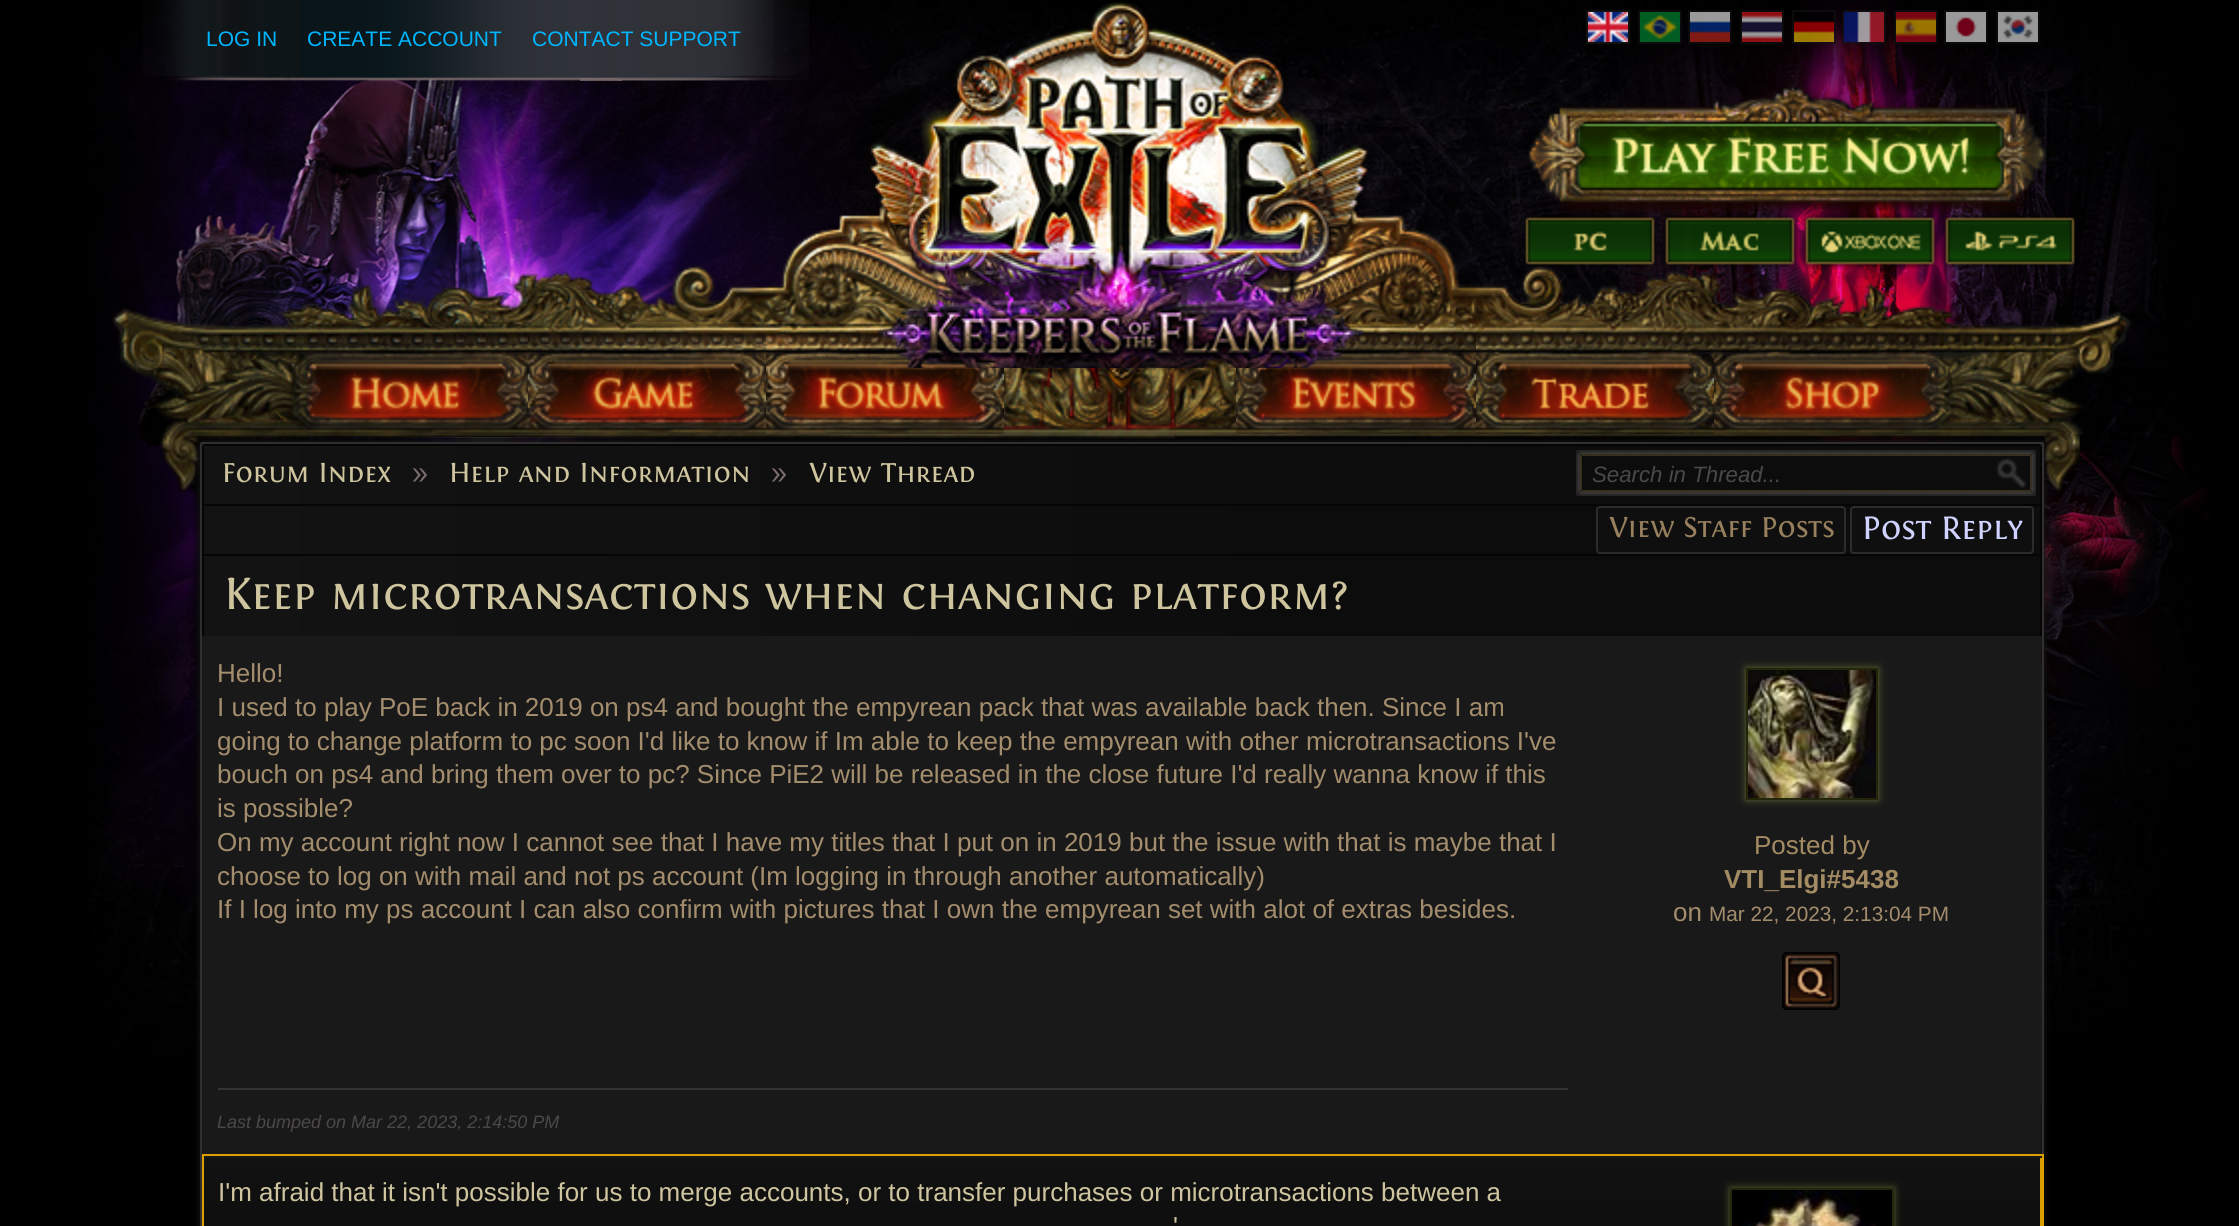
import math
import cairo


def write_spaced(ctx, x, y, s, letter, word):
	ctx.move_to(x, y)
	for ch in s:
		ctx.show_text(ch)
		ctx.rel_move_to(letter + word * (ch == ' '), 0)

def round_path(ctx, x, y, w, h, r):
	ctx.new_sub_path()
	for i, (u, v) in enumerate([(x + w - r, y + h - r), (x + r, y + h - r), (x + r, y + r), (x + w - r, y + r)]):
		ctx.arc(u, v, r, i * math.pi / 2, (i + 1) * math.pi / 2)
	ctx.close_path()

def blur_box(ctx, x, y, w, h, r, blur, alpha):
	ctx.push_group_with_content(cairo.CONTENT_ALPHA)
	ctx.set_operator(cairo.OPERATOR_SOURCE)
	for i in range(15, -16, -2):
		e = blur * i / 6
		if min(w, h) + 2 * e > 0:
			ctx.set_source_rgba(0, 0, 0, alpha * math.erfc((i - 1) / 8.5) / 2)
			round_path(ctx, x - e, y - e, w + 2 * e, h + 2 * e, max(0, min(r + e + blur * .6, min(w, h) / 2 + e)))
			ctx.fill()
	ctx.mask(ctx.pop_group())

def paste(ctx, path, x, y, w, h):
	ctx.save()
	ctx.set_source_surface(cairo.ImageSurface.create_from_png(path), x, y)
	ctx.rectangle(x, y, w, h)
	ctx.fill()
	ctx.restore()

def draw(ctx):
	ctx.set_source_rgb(0, 0, 0)
	ctx.paint()
	paste(ctx, 'media/1.png', 89, 0, 2121, 1059)
	ctx.save()
	ctx.set_fill_rule(cairo.FILL_RULE_EVEN_ODD)
	ctx.new_path()
	ctx.move_to(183, 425)
	ctx.line_to(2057, 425)
	ctx.line_to(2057, 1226)
	ctx.line_to(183, 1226)
	ctx.close_path()
	ctx.move_to(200, 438)
	ctx.line_to(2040, 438)
	ctx.line_to(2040, 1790)
	ctx.line_to(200, 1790)
	ctx.close_path()
	ctx.clip()
	blur_box(ctx, 196, 438, 1848, 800, 0, 4, 0.88)
	ctx.restore()
	paste(ctx, 'media/2.png', 112, 197, 2020, 237)
	paste(ctx, 'media/3.png', 143, 0, 630, 81)
	ctx.set_source_rgba(0.49, 0.427, 0.427, 0.75)
	ctx.rectangle(580, 78, 42, 3)
	ctx.fill()
	paste(ctx, 'media/4.png', 618, 0, 191, 81)
	ctx.select_font_face('Liberation Sans')
	ctx.set_font_size(21)
	ctx.set_source_rgb(0, 0.714, 1)
	for x, y, s in [
		(206, 46, 'LOG IN'),
		(307, 46, 'CREATE ACCOUNT'),
		(532, 46, 'CONTACT SUPPORT'),
	]:
		ctx.move_to(x, y)
		ctx.show_text(s)
	ctx.set_source_rgba(0, 0, 0, 0.91)
	ctx.rectangle(200, 438, 1840, 621)
	ctx.fill()
	paste(ctx, 'media/26.png', 160, 434, 1920, 58)
	ctx.set_source_rgb(0.106, 0.106, 0.106)
	blur_box(ctx, 200, 442, 1844, 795, 2, 3, 1)
	paste(ctx, 'media/22.png', 766, 334, 238, 100)
	paste(ctx, 'media/23.png', 1236, 334, 240, 100)
	paste(ctx, 'media/5.png', 869, 2, 500, 366)
	ctx.rectangle(1587, 11, 42, 32)
	ctx.set_source_rgb(0.067, 0.067, 0.067)
	ctx.stroke()
	ctx.rectangle(1639, 11, 42, 32)
	ctx.set_source_rgba(0.067, 0.067, 0.067, 0.6)
	ctx.stroke()
	ctx.rectangle(1689, 11, 42, 32)
	ctx.stroke()
	ctx.rectangle(1741, 11, 42, 32)
	ctx.stroke()
	ctx.rectangle(1793, 11, 42, 32)
	ctx.stroke()
	ctx.rectangle(1843, 11, 42, 32)
	ctx.stroke()
	ctx.rectangle(1895, 11, 42, 32)
	ctx.stroke()
	ctx.rectangle(1945, 11, 42, 32)
	ctx.stroke()
	ctx.rectangle(1997, 11, 42, 32)
	ctx.stroke()
	paste(ctx, 'media/6.png', 1588, 12, 40, 30)
	paste(ctx, 'media/7.png', 1640, 12, 40, 30)
	paste(ctx, 'media/8.png', 1690, 12, 40, 30)
	paste(ctx, 'media/9.png', 1742, 12, 40, 30)
	paste(ctx, 'media/10.png', 1794, 12, 40, 30)
	paste(ctx, 'media/11.png', 1844, 12, 40, 30)
	paste(ctx, 'media/12.png', 1896, 12, 40, 30)
	paste(ctx, 'media/13.png', 1946, 12, 40, 30)
	paste(ctx, 'media/14.png', 1998, 12, 40, 30)
	paste(ctx, 'media/15.png', 1528, 85, 519, 137)
	paste(ctx, 'media/16.png', 1523, 214, 135, 56)
	paste(ctx, 'media/17.png', 1662, 212, 138, 58)
	paste(ctx, 'media/18.png', 1800, 212, 140, 58)
	paste(ctx, 'media/19.png', 1940, 212, 135, 58)
	paste(ctx, 'media/20.png', 306, 334, 222, 100)
	paste(ctx, 'media/21.png', 528, 334, 238, 100)
	paste(ctx, 'media/24.png', 1476, 334, 238, 100)
	paste(ctx, 'media/25.png', 1714, 334, 224, 100)
	ctx.set_source_rgba(0.098, 0.098, 0.098, 0.5)
	round_path(ctx, 201, 443, 1842, 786, 1)
	ctx.fill_preserve()
	ctx.set_source_rgb(0.188, 0.18, 0.18)
	ctx.stroke()
	gradient = cairo.LinearGradient(2040, 475, 204, 475)
	gradient.add_color_stop_rgba(0, 0.047, 0.047, 0.047, 1)
	gradient.add_color_stop_rgba(0.4, 0.047, 0.047, 0.047, 1)
	gradient.add_color_stop_rgba(1, 0.075, 0.075, 0.075, 1)
	ctx.set_source(gradient)
	ctx.rectangle(204, 446, 1836, 58)
	ctx.fill()
	ctx.save()
	ctx.new_path()
	ctx.move_to(206, 444)
	ctx.line_to(2038, 444)
	ctx.curve_to(2040, 444, 2042, 446, 2042, 448)
	ctx.line_to(2042, 504)
	ctx.line_to(202, 504)
	ctx.line_to(202, 448)
	ctx.curve_to(202, 446, 204, 444, 206, 444)
	ctx.close_path()
	ctx.clip()
	gradient = cairo.LinearGradient(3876, 475, 2040, 475)
	gradient.add_color_stop_rgba(0, 0.047, 0.047, 0.047, 1)
	gradient.add_color_stop_rgba(0.4, 0.047, 0.047, 0.047, 1)
	gradient.add_color_stop_rgba(1, 0.075, 0.075, 0.075, 1)
	ctx.set_source(gradient)
	ctx.rectangle(2040, 444, 2, 2)
	ctx.fill()
	ctx.restore()
	ctx.set_source_rgb(0.02, 0.02, 0.02)
	ctx.rectangle(204, 444, 1836, 2)
	ctx.rectangle(2040, 446, 2, 58)
	ctx.rectangle(202, 446, 2, 58)
	ctx.fill()
	ctx.select_font_face('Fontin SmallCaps')
	ctx.set_font_size(28.6)
	ctx.set_source_rgb(0.808, 0.773, 0.624)
	write_spaced(ctx, 222, 482, 'Forum Index', 0, 1)
	ctx.set_source_rgb(0.494, 0.431, 0.431)
	ctx.move_to(411, 482)
	ctx.show_text('»')
	ctx.set_source_rgb(0.808, 0.773, 0.624)
	write_spaced(ctx, 449, 482, 'Help and Information', 0, 1)
	ctx.set_source_rgb(0.494, 0.431, 0.431)
	ctx.move_to(770, 482)
	ctx.show_text('»')
	ctx.set_source_rgb(0.808, 0.773, 0.624)
	write_spaced(ctx, 809, 482, 'View Thread', 0, 1)
	gradient = cairo.LinearGradient(2040, 530, 204, 530)
	gradient.add_color_stop_rgba(0, 0.047, 0.047, 0.047, 1)
	gradient.add_color_stop_rgba(0.4, 0.047, 0.047, 0.047, 1)
	gradient.add_color_stop_rgba(1, 0.075, 0.075, 0.075, 1)
	ctx.set_source(gradient)
	ctx.rectangle(204, 506, 1836, 48)
	ctx.fill()
	ctx.set_source_rgb(0.02, 0.02, 0.02)
	ctx.rectangle(202, 504, 1840, 2)
	ctx.rectangle(2040, 504, 2, 50)
	ctx.rectangle(202, 504, 2, 50)
	ctx.fill()
	paste(ctx, 'media/27.png', 1576, 450, 460, 46)
	ctx.select_font_face('Liberation Sans', cairo.FONT_SLANT_ITALIC)
	ctx.set_font_size(22.25)
	ctx.set_source_rgb(0.298, 0.282, 0.282)
	ctx.move_to(1592, 482)
	ctx.show_text('Search in Thread...')
	paste(ctx, 'media/28.png', 1996, 458, 31, 30)
	ctx.set_source_rgb(0.059, 0.059, 0.059)
	round_path(ctx, 1597, 507, 248, 46, 3)
	ctx.fill_preserve()
	ctx.set_source_rgb(0.173, 0.173, 0.173)
	ctx.stroke()
	ctx.select_font_face('Fontin SmallCaps')
	ctx.set_font_size(30)
	ctx.set_source_rgb(0.596, 0.502, 0.369)
	ctx.move_to(1609, 537)
	ctx.show_text('View Staff Posts')
	ctx.set_source_rgb(0.059, 0.059, 0.059)
	round_path(ctx, 1851, 507, 182, 46, 3)
	ctx.fill_preserve()
	ctx.set_source_rgb(0.173, 0.173, 0.173)
	ctx.stroke()
	ctx.set_font_size(34)
	ctx.set_source_rgb(0.816, 0.824, 1)
	ctx.move_to(1862, 539)
	ctx.show_text('Post Reply')
	gradient = cairo.LinearGradient(2040, 596, 204, 596)
	gradient.add_color_stop_rgba(0, 0.047, 0.047, 0.047, 1)
	gradient.add_color_stop_rgba(0.4, 0.047, 0.047, 0.047, 1)
	gradient.add_color_stop_rgba(1, 0.075, 0.075, 0.075, 1)
	ctx.set_source(gradient)
	ctx.rectangle(204, 556, 1836, 80)
	ctx.fill()
	ctx.set_source_rgb(0.02, 0.02, 0.02)
	ctx.rectangle(202, 554, 1840, 2)
	ctx.rectangle(2040, 554, 2, 82)
	ctx.rectangle(202, 554, 2, 82)
	ctx.fill()
	ctx.set_font_size(46.8)
	ctx.set_source_rgb(0.808, 0.773, 0.624)
	write_spaced(ctx, 224, 609, 'Keep microtransactions when changing platform?', 0, 1)
	gradient = cairo.LinearGradient(1123, 638, 1123, 1156)
	gradient.add_color_stop_rgba(0, 0.094, 0.094, 0.094, 1)
	gradient.add_color_stop_rgba(0.1, 0.102, 0.106, 0.106, 1)
	gradient.add_color_stop_rgba(0.8, 0.102, 0.106, 0.106, 1)
	gradient.add_color_stop_rgba(1, 0.094, 0.094, 0.094, 1)
	ctx.set_source(gradient)
	ctx.rectangle(2040, 664, 2, 440)
	ctx.fill()
	ctx.set_source_rgb(0.106, 0.106, 0.106)
	ctx.rectangle(202, 636, 2, 2)
	ctx.fill()
	ctx.select_font_face('Liberation Sans')
	ctx.set_font_size(26)
	ctx.set_source_rgb(0.639, 0.553, 0.427)
	for x, y, s in [
		(217, 682, 'Hello!'),
		(217, 716, 'I used to play PoE back in 2019 on ps4 and bought the empyrean pack that was available back then. Since I am'),
		(217, 750, 'going to change platform to pc soon I\'d like to know if Im able to keep the empyrean with other microtransactions I\'ve'),
		(217, 783, 'bouch on ps4 and bring them over to pc? Since PiE2 will be released in the close future I\'d really wanna know if this'),
		(217, 817, 'is possible?'),
		(217, 851, 'On my account right now I cannot see that I have my titles that I put on in 2019 but the issue with that is maybe that I'),
		(217, 885, 'choose to log on with mail and not ps account (Im logging in through another automatically)'),
		(217, 918, 'If I log into my ps account I can also confirm with pictures that I own the empyrean set with alot of extras besides.'),
	]:
		ctx.move_to(x, y)
		ctx.show_text(s)
	ctx.set_source_rgb(0.2, 0.2, 0.2)
	ctx.rectangle(218, 1088, 1350, 2)
	ctx.fill()
	ctx.select_font_face('Liberation Sans', cairo.FONT_SLANT_ITALIC)
	ctx.set_font_size(18)
	ctx.set_source_rgb(0.298, 0.282, 0.282)
	ctx.move_to(217, 1128)
	ctx.show_text('Last bumped on Mar 22, 2023, 2:14:50 PM')
	ctx.set_source_rgb(0.106, 0.106, 0.106)
	ctx.rectangle(2041, 636, 1, 2)
	ctx.fill()
	ctx.set_source_rgb(0.6, 0.655, 0.263)
	blur_box(ctx, 1746, 668, 132, 132, 0, 4, 0.55)
	ctx.rectangle(1747, 669, 130, 130)
	ctx.set_source_rgb(0.137, 0.149, 0.043)
	ctx.stroke()
	paste(ctx, 'media/29.png', 1748, 670, 128, 128)
	ctx.select_font_face('Liberation Sans')
	ctx.set_font_size(26)
	ctx.set_source_rgb(0.639, 0.545, 0.388)
	ctx.move_to(1754, 854)
	ctx.show_text('Posted by')
	ctx.select_font_face('Liberation Sans', cairo.FONT_SLANT_NORMAL, cairo.FONT_WEIGHT_BOLD)
	ctx.move_to(1724, 888)
	ctx.show_text('VTI_Elgi#5438')
	ctx.select_font_face('Liberation Sans')
	ctx.set_source_rgb(0.639, 0.553, 0.427)
	ctx.move_to(1673, 921)
	ctx.show_text('on')
	ctx.set_font_size(20.75)
	ctx.move_to(1709, 921)
	ctx.show_text('Mar 22, 2023, 2:13:04 PM')
	paste(ctx, 'media/30.png', 1782, 952, 58, 58)
	gradient = cairo.LinearGradient(1123, 1158, 1123, 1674)
	gradient.add_color_stop_rgba(0, 0.071, 0.071, 0.071, 1)
	gradient.add_color_stop_rgba(0.1, 0.059, 0.059, 0.059, 1)
	gradient.add_color_stop_rgba(0.8, 0.059, 0.059, 0.059, 1)
	gradient.add_color_stop_rgba(1, 0.071, 0.071, 0.071, 1)
	ctx.set_source(gradient)
	ctx.rectangle(204, 1158, 1836, 68)
	ctx.fill()
	ctx.set_source_rgb(0.859, 0.624, 0)
	ctx.rectangle(2040, 1156, 2, 70)
	ctx.fill()
	ctx.set_source_rgb(0.106, 0.106, 0.106)
	ctx.rectangle(202, 1156, 2, 2)
	ctx.rectangle(2040, 1156, 2, 2)
	ctx.fill()
	ctx.set_source_rgb(0.6, 0.655, 0.263)
	blur_box(ctx, 1730, 1188, 164, 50, 0, 4, 0.55)
	ctx.rectangle(1731, 1189, 162, 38)
	ctx.set_source_rgb(0.137, 0.149, 0.043)
	ctx.stroke()
	paste(ctx, 'media/31.png', 1732, 1190, 160, 36)
	ctx.rectangle(203, 1155, 1840, 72)
	ctx.set_source_rgb(0.859, 0.624, 0)
	ctx.stroke()
	ctx.set_font_size(26)
	ctx.set_source_rgb(0.808, 0.773, 0.624)
	ctx.move_to(218, 1201)
	ctx.show_text('I\'m afraid that it isn\'t possible for us to merge accounts, or to transfer purchases or microtransactions between a')
	ctx.move_to(1173, 1235)
	ctx.show_text('\'')


surface = cairo.ImageSurface(cairo.FORMAT_RGB24, 2239, 1226)
ctx = cairo.Context(surface)
options = cairo.FontOptions()
options.set_hint_metrics(cairo.HINT_METRICS_OFF)
options.set_hint_style(cairo.HINT_STYLE_NONE)
ctx.set_font_options(options)
ctx.set_miter_limit(4)
draw(ctx)
surface.write_to_png('image.png')
